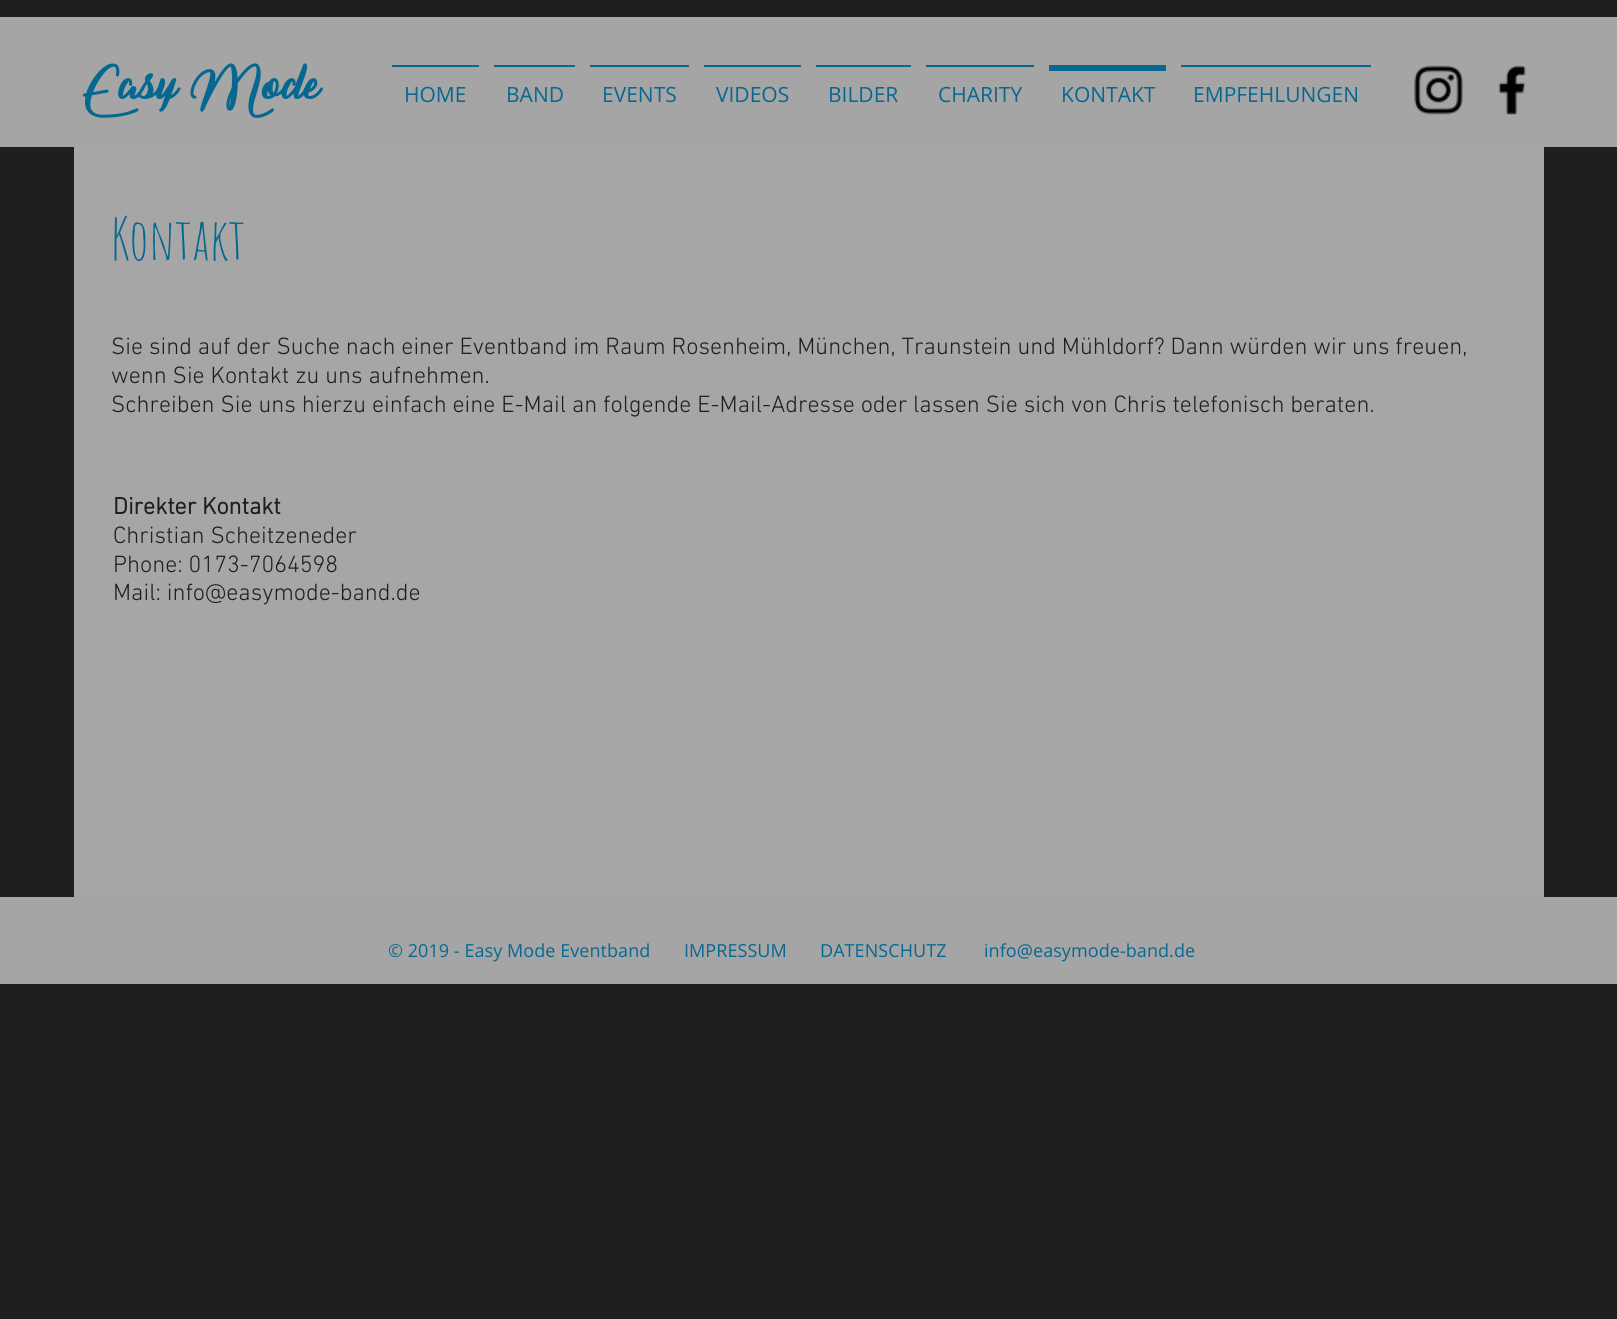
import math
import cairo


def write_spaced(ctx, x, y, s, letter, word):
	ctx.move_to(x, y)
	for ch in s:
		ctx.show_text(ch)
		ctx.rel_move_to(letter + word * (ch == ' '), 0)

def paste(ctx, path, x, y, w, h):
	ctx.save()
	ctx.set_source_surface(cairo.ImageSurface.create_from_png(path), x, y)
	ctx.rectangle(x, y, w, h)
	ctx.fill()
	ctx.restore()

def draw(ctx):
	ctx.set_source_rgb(0.122, 0.122, 0.122)
	ctx.paint()
	ctx.set_source_rgb(0.647, 0.647, 0.647)
	ctx.rectangle(0, 17, 1617, 130)
	ctx.fill()
	ctx.select_font_face('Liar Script')
	ctx.set_font_size(51)
	ctx.set_source_rgb(0.027, 0.408, 0.569)
	ctx.move_to(83, 99)
	ctx.show_text('Easy Mode')
	ctx.rectangle(392, 65, 87, 2)
	ctx.fill()
	ctx.select_font_face('Open Sans')
	ctx.set_font_size(21)
	ctx.move_to(404, 102)
	ctx.show_text('HOME')
	ctx.rectangle(494, 65, 81, 2)
	ctx.fill()
	ctx.move_to(506, 102)
	ctx.show_text('BAND')
	ctx.rectangle(590, 65, 99, 2)
	ctx.fill()
	ctx.move_to(602, 102)
	ctx.show_text('EVENTS')
	ctx.rectangle(704, 65, 97, 2)
	ctx.fill()
	ctx.move_to(716, 102)
	ctx.show_text('VIDEOS')
	ctx.rectangle(816, 65, 95, 2)
	ctx.fill()
	ctx.move_to(828, 102)
	ctx.show_text('BILDER')
	ctx.rectangle(926, 65, 108, 2)
	ctx.fill()
	ctx.move_to(938, 102)
	ctx.show_text('CHARITY')
	ctx.rectangle(1049, 65, 117, 6)
	ctx.fill()
	ctx.move_to(1061, 102)
	ctx.show_text('KONTAKT')
	ctx.rectangle(1181, 65, 190, 2)
	ctx.fill()
	ctx.move_to(1193, 102)
	ctx.show_text('EMPFEHLUNGEN')
	paste(ctx, 'media/1.png', 1414, 65, 49, 50)
	paste(ctx, 'media/2.png', 1498, 65, 28, 50)
	ctx.set_source_rgb(0.651, 0.651, 0.651)
	ctx.rectangle(74, 147, 1470, 750)
	ctx.fill()
	ctx.select_font_face('Amatic SC')
	ctx.set_font_size(57)
	ctx.set_source_rgb(0.027, 0.408, 0.569)
	ctx.move_to(111, 260)
	ctx.show_text('Kontakt')
	ctx.select_font_face('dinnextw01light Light')
	ctx.set_font_size(24)
	ctx.set_source_rgb(0.122, 0.122, 0.122)
	for x, y, s in [
		(111, 354, 'Sie sind auf der Suche nach einer Eventband im Raum Rosenheim, München, Traunstein und Mühldorf? Dann würden wir uns freuen,'),
		(111, 383, 'wenn Sie Kontakt zu uns aufnehmen.'),
		(111, 412, 'Schreiben Sie uns hierzu einfach eine E-Mail an folgende E-Mail-Adresse oder lassen Sie sich von Chris telefonisch beraten.'),
	]:
		ctx.move_to(x, y)
		ctx.show_text(s)
	ctx.select_font_face('dinnextw01light', cairo.FONT_SLANT_NORMAL, cairo.FONT_WEIGHT_BOLD)
	ctx.move_to(113, 514)
	ctx.show_text('Direkter Kontakt')
	ctx.select_font_face('dinnextw01light Light')
	for x, y, s in [
		(113, 543, 'Christian Scheitzeneder'),
		(113, 572, 'Phone: 0173-7064598'),
		(113, 600, 'Mail: info@easymode-band.de'),
	]:
		ctx.move_to(x, y)
		ctx.show_text(s)
	ctx.set_source_rgb(0.647, 0.647, 0.647)
	ctx.rectangle(0, 897, 1617, 87)
	ctx.fill()
	ctx.select_font_face('Open Sans')
	ctx.set_font_size(18)
	ctx.set_source_rgb(0.027, 0.408, 0.569)
	for x, y, s in [
		(388, 957, '© 2019 - Easy Mode Eventband'),
		(684, 957, 'IMPRESSUM'),
		(820, 957, 'DATENSCHUTZ'),
		(984, 957, 'info@easymode-band.de'),
	]:
		write_spaced(ctx, x, y, s, 0.05, 0)


surface = cairo.ImageSurface(cairo.FORMAT_RGB24, 1617, 1319)
ctx = cairo.Context(surface)
options = cairo.FontOptions()
options.set_hint_metrics(cairo.HINT_METRICS_OFF)
options.set_hint_style(cairo.HINT_STYLE_NONE)
ctx.set_font_options(options)
ctx.set_miter_limit(4)
draw(ctx)
surface.write_to_png('image.png')
